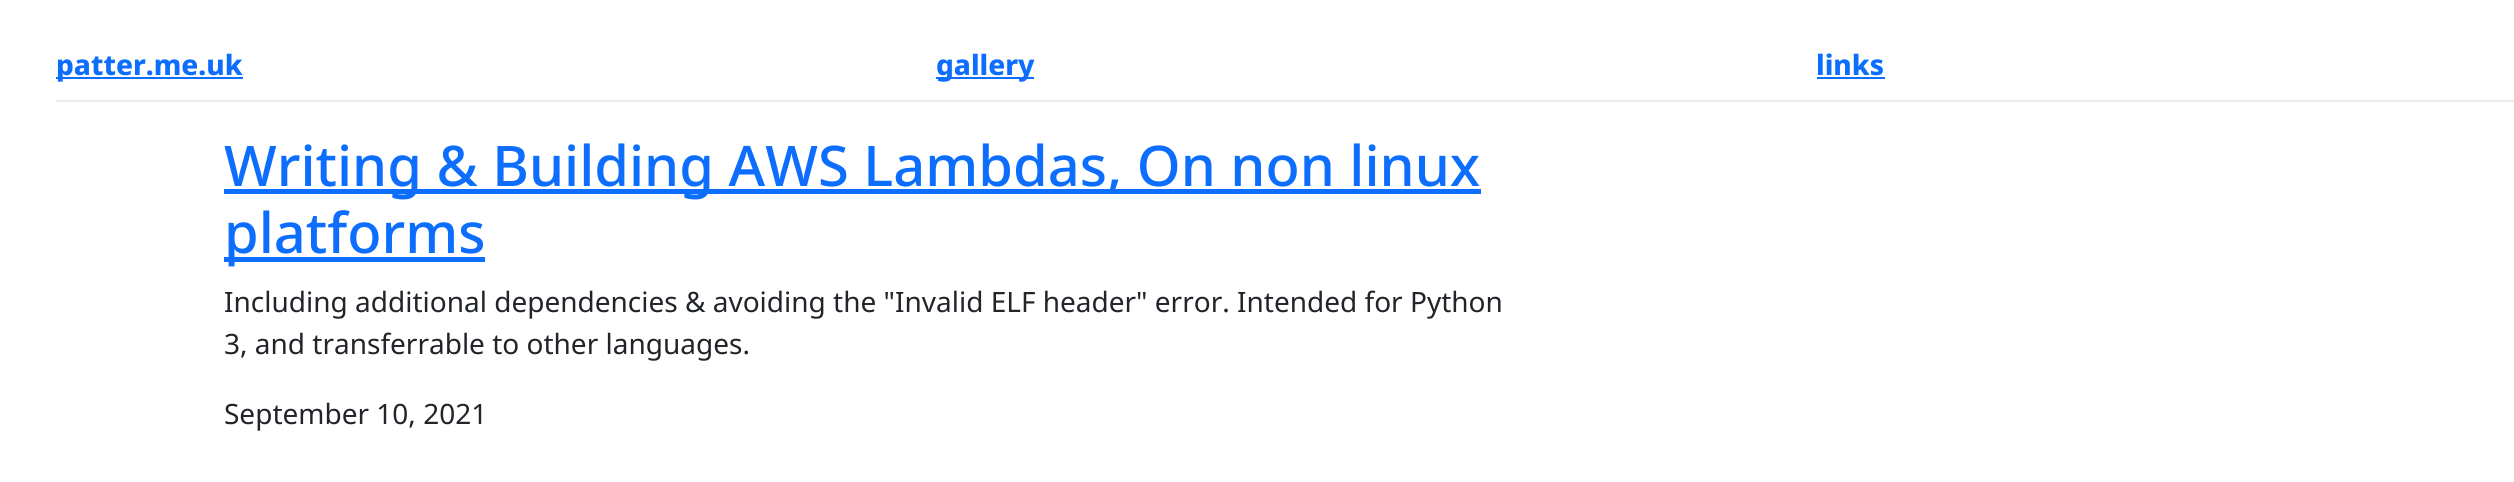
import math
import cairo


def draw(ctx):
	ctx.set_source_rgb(1, 1, 1)
	ctx.paint()
	ctx.set_source_rgb(0.914, 0.925, 0.937)
	ctx.rectangle(56, 100, 2458, 2)
	ctx.fill()
	ctx.set_source_rgb(0.051, 0.431, 0.992)
	ctx.rectangle(56, 77, 187, 2)
	ctx.fill()
	ctx.select_font_face('Noto Sans ExtraBold')
	ctx.set_font_size(28)
	ctx.move_to(56, 75)
	ctx.show_text('patter.me.uk')
	ctx.rectangle(936, 77, 98, 2)
	ctx.fill()
	ctx.move_to(936, 75)
	ctx.show_text('gallery')
	ctx.move_to(1816, 75)
	ctx.show_text('links')
	ctx.rectangle(1817, 77, 68, 2)
	ctx.fill()
	ctx.rectangle(224, 189, 1257, 5)
	ctx.fill()
	ctx.select_font_face('Noto Sans Medium')
	ctx.set_font_size(56)
	ctx.move_to(224, 186)
	ctx.show_text('Writing & Building AWS Lambdas, On non linux')
	ctx.rectangle(224, 257, 261, 5)
	ctx.fill()
	ctx.move_to(224, 253)
	ctx.show_text('platforms')
	ctx.select_font_face('Noto Sans')
	ctx.set_font_size(28)
	ctx.set_source_rgb(0.129, 0.145, 0.161)
	for x, y, s in [
		(224, 312, 'Including additional dependencies & avoiding the "Invalid ELF header" error. Intended for Python'),
		(224, 354, '3, and transferrable to other languages.'),
		(224, 424, 'September 10, 2021'),
	]:
		ctx.move_to(x, y)
		ctx.show_text(s)


surface = cairo.ImageSurface(cairo.FORMAT_RGB24, 2514, 482)
ctx = cairo.Context(surface)
options = cairo.FontOptions()
options.set_hint_metrics(cairo.HINT_METRICS_OFF)
options.set_hint_style(cairo.HINT_STYLE_NONE)
ctx.set_font_options(options)
ctx.set_miter_limit(4)
draw(ctx)
surface.write_to_png('image.png')
